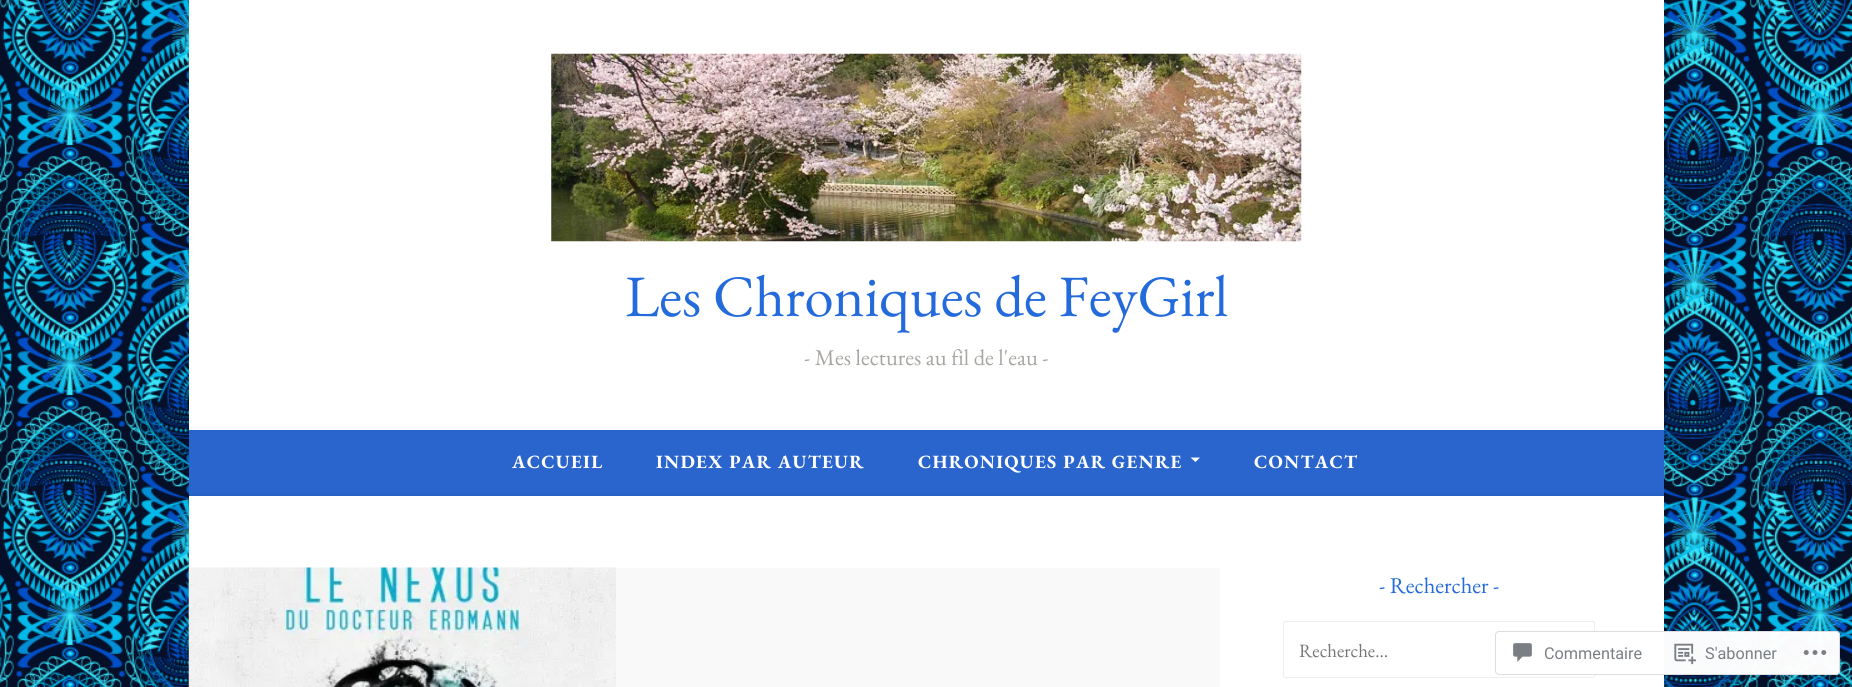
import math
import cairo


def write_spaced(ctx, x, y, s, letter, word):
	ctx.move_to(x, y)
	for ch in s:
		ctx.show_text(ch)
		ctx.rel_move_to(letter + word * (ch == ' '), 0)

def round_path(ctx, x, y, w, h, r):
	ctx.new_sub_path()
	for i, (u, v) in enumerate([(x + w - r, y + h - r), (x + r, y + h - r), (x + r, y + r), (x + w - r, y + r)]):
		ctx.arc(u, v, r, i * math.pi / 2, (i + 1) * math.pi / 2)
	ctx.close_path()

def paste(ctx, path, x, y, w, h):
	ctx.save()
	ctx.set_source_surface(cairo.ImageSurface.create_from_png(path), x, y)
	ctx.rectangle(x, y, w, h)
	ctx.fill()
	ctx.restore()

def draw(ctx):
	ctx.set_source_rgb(1, 1, 1)
	ctx.paint()
	paste(ctx, 'media/1.png', 0, 0, 1852, 687)
	ctx.set_source_rgb(1, 1, 1)
	ctx.rectangle(189, 0, 1475, 430)
	ctx.fill()
	paste(ctx, 'media/2.png', 551, 53, 751, 189)
	ctx.select_font_face('EB Garamond')
	ctx.set_font_size(58.75)
	ctx.set_source_rgb(0.137, 0.416, 0.859)
	ctx.move_to(625, 316)
	ctx.show_text('Les Chroniques de FeyGirl')
	ctx.set_font_size(22.5)
	ctx.set_source_rgb(0.659, 0.651, 0.631)
	ctx.move_to(804, 365)
	ctx.show_text('- Mes lectures au fil de l\'eau -')
	ctx.set_source_rgb(0.161, 0.396, 0.8)
	ctx.rectangle(189, 430, 1475, 66)
	ctx.fill()
	ctx.set_source_rgba(0, 0, 0, 0.03)
	ctx.rectangle(189, 494, 1475, 2)
	ctx.fill()
	ctx.select_font_face('EB Garamond', cairo.FONT_SLANT_NORMAL, cairo.FONT_WEIGHT_BOLD)
	ctx.set_font_size(18.75)
	ctx.set_source_rgb(1, 1, 1)
	for x, y, s in [
		(512, 468, 'ACCUEIL'),
		(656, 468, 'INDEX PAR AUTEUR'),
		(918, 468, 'CHRONIQUES PAR GENRE'),
	]:
		write_spaced(ctx, x, y, s, 1.25, 0)
	ctx.new_path()
	ctx.move_to(1190.5, 457.5)
	ctx.line_to(1200, 457.5)
	ctx.line_to(1195.5, 462)
	ctx.close_path()
	ctx.fill()
	write_spaced(ctx, 1254, 468, 'CONTACT', 1.25, 0)
	ctx.rectangle(189, 496, 1475, 191)
	ctx.fill()
	ctx.set_source_rgb(0.973, 0.976, 0.973)
	ctx.rectangle(616, 568, 604, 119)
	ctx.fill()
	paste(ctx, 'media/3.png', 188, 567, 428, 120)
	ctx.select_font_face('EB Garamond')
	ctx.set_font_size(22.5)
	ctx.set_source_rgb(0.137, 0.416, 0.859)
	ctx.move_to(1379, 593)
	ctx.show_text('- Rechercher -')
	round_path(ctx, 1283.5, 621.5, 311, 56, 2)
	ctx.set_source_rgb(0.933, 0.933, 0.933)
	ctx.set_line_width(1)
	ctx.stroke()
	ctx.set_font_size(18.75)
	ctx.set_source_rgb(0.459, 0.459, 0.459)
	ctx.move_to(1299, 657)
	ctx.show_text('Recherche…')
	ctx.set_source_rgba(1, 1, 1, 0.98)
	round_path(ctx, 1495, 631, 345, 44, 4)
	ctx.fill()
	round_path(ctx, 1495.5, 631.5, 344, 43, 3.5)
	ctx.set_source_rgba(0.863, 0.863, 0.871, 0.98)
	ctx.stroke()
	paste(ctx, 'media/4.png', 1513, 643, 19, 19)
	ctx.select_font_face('Roboto')
	ctx.set_font_size(16.25)
	ctx.set_source_rgb(0.482, 0.498, 0.518)
	ctx.move_to(1544, 659)
	ctx.show_text('Commentaire')
	paste(ctx, 'media/5.png', 1674, 643, 22, 22)
	ctx.move_to(1705, 659)
	ctx.show_text('S\'abonner')
	paste(ctx, 'media/6.png', 1803, 650, 24, 5)


surface = cairo.ImageSurface(cairo.FORMAT_RGB24, 1852, 687)
ctx = cairo.Context(surface)
options = cairo.FontOptions()
options.set_hint_metrics(cairo.HINT_METRICS_OFF)
options.set_hint_style(cairo.HINT_STYLE_NONE)
ctx.set_font_options(options)
ctx.set_miter_limit(4)
draw(ctx)
surface.write_to_png('image.png')
